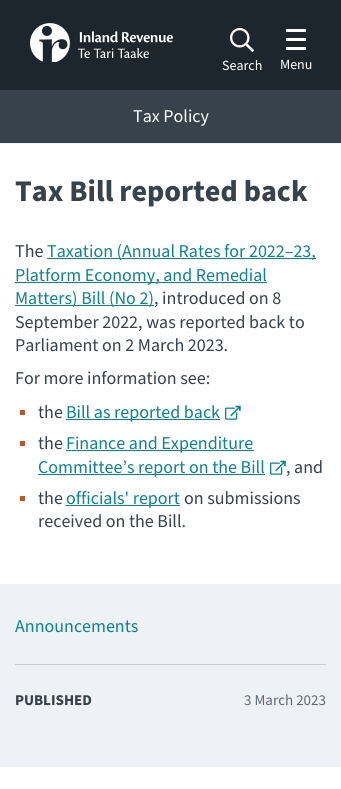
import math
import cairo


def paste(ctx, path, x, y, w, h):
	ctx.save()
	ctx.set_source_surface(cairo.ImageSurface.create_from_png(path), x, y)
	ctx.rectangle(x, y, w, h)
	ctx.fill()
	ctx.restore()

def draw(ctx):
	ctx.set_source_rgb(1, 1, 1)
	ctx.paint()
	ctx.set_source_rgb(0.114, 0.149, 0.176)
	ctx.rectangle(0, 0, 341, 90)
	ctx.fill()
	paste(ctx, 'media/1.png', 30, 23, 143, 39)
	paste(ctx, 'media/2.png', 230, 28, 24, 24)
	ctx.select_font_face('Source Sans Pro')
	ctx.set_font_size(14)
	ctx.set_source_rgb(1, 1, 1)
	ctx.move_to(222, 70)
	ctx.show_text('Search')
	ctx.rectangle(286, 29, 20, 3)
	ctx.rectangle(286, 38, 20, 3)
	ctx.rectangle(286, 47, 20, 3)
	ctx.fill()
	ctx.move_to(280, 69)
	ctx.show_text('Menu')
	ctx.set_source_rgb(0.216, 0.259, 0.29)
	ctx.rectangle(0, 90, 341, 53)
	ctx.fill()
	ctx.set_font_size(18)
	ctx.set_source_rgb(1, 1, 1)
	ctx.move_to(133, 122)
	ctx.show_text('Tax Policy')
	ctx.set_source_rgb(0.933, 0.949, 0.961)
	ctx.rectangle(0, 143, 341, 1)
	ctx.fill()
	ctx.select_font_face('Source Sans Pro', cairo.FONT_SLANT_NORMAL, cairo.FONT_WEIGHT_BOLD)
	ctx.set_font_size(30)
	ctx.set_source_rgb(0.216, 0.259, 0.29)
	ctx.move_to(15, 201)
	ctx.show_text('Tax Bill reported back')
	ctx.select_font_face('Source Sans Pro')
	ctx.set_font_size(18)
	ctx.move_to(15, 257)
	ctx.show_text('The')
	ctx.set_source_rgb(0.051, 0.514, 0.565)
	ctx.rectangle(47, 258, 269, 1)
	ctx.fill()
	ctx.move_to(47, 257)
	ctx.show_text('Taxation (Annual Rates for 2022–23,')
	ctx.rectangle(15, 282, 252, 1)
	ctx.fill()
	ctx.move_to(15, 281)
	ctx.show_text('Platform Economy, and Remedial')
	ctx.rectangle(15, 305, 139, 1)
	ctx.fill()
	ctx.move_to(15, 304)
	ctx.show_text('Matters) Bill (No 2)')
	ctx.set_source_rgb(0.216, 0.259, 0.29)
	for x, y, s in [
		(154, 304, ', introduced on 8'),
		(15, 328, 'September 2022, was reported back to'),
		(15, 351, 'Parliament on 2 March 2023.'),
		(15, 384, 'For more information see:'),
	]:
		ctx.move_to(x, y)
		ctx.show_text(s)
	ctx.set_source_rgb(0.737, 0.341, 0.153)
	ctx.rectangle(20, 410, 5, 5)
	ctx.fill()
	ctx.set_source_rgb(0.216, 0.259, 0.29)
	ctx.move_to(38, 418)
	ctx.show_text('the')
	ctx.set_source_rgb(0.051, 0.514, 0.565)
	ctx.rectangle(66, 419, 154, 1)
	ctx.fill()
	ctx.move_to(66, 418)
	ctx.show_text('Bill as reported back')
	paste(ctx, 'media/3.png', 225, 405, 16, 15)
	ctx.set_source_rgb(0.216, 0.259, 0.29)
	ctx.move_to(38, 449)
	ctx.show_text('the')
	ctx.set_source_rgb(0.737, 0.341, 0.153)
	ctx.rectangle(20, 441, 5, 5)
	ctx.fill()
	ctx.set_source_rgb(0.051, 0.514, 0.565)
	ctx.rectangle(66, 450, 188, 1)
	ctx.fill()
	ctx.move_to(66, 449)
	ctx.show_text('Finance and Expenditure')
	ctx.rectangle(38, 474, 227, 1)
	ctx.fill()
	ctx.move_to(38, 473)
	ctx.show_text('Committee’s report on the Bill')
	paste(ctx, 'media/3.png', 270, 460, 16, 15)
	ctx.set_source_rgb(0.216, 0.259, 0.29)
	ctx.move_to(286, 473)
	ctx.show_text(', and')
	ctx.set_source_rgb(0.737, 0.341, 0.153)
	ctx.rectangle(20, 496, 5, 5)
	ctx.fill()
	ctx.set_source_rgb(0.216, 0.259, 0.29)
	ctx.move_to(38, 504)
	ctx.show_text('the')
	ctx.set_source_rgb(0.051, 0.514, 0.565)
	ctx.rectangle(66, 505, 114, 1)
	ctx.fill()
	ctx.move_to(66, 504)
	ctx.show_text('officials\' report')
	ctx.set_source_rgb(0.216, 0.259, 0.29)
	ctx.move_to(184, 504)
	ctx.show_text('on submissions')
	ctx.move_to(38, 527)
	ctx.show_text('received on the Bill.')
	ctx.set_source_rgb(0.933, 0.949, 0.961)
	ctx.rectangle(0, 584, 341, 183)
	ctx.fill()
	ctx.set_source_rgb(0.051, 0.514, 0.565)
	ctx.move_to(15, 632)
	ctx.show_text('Announcements')
	ctx.set_source_rgb(0.784, 0.816, 0.835)
	ctx.rectangle(15, 664, 311, 1)
	ctx.fill()
	ctx.select_font_face('Source Sans Pro', cairo.FONT_SLANT_NORMAL, cairo.FONT_WEIGHT_BOLD)
	ctx.set_font_size(15)
	ctx.set_source_rgb(0.216, 0.259, 0.29)
	ctx.move_to(15, 705)
	ctx.show_text('PUBLISHED')
	ctx.select_font_face('Source Sans Pro')
	ctx.set_source_rgb(0.361, 0.42, 0.459)
	ctx.move_to(244, 705)
	ctx.show_text('3 March 2023')


surface = cairo.ImageSurface(cairo.FORMAT_RGB24, 341, 789)
ctx = cairo.Context(surface)
options = cairo.FontOptions()
options.set_hint_metrics(cairo.HINT_METRICS_OFF)
options.set_hint_style(cairo.HINT_STYLE_NONE)
ctx.set_font_options(options)
ctx.set_miter_limit(4)
draw(ctx)
surface.write_to_png('image.png')
